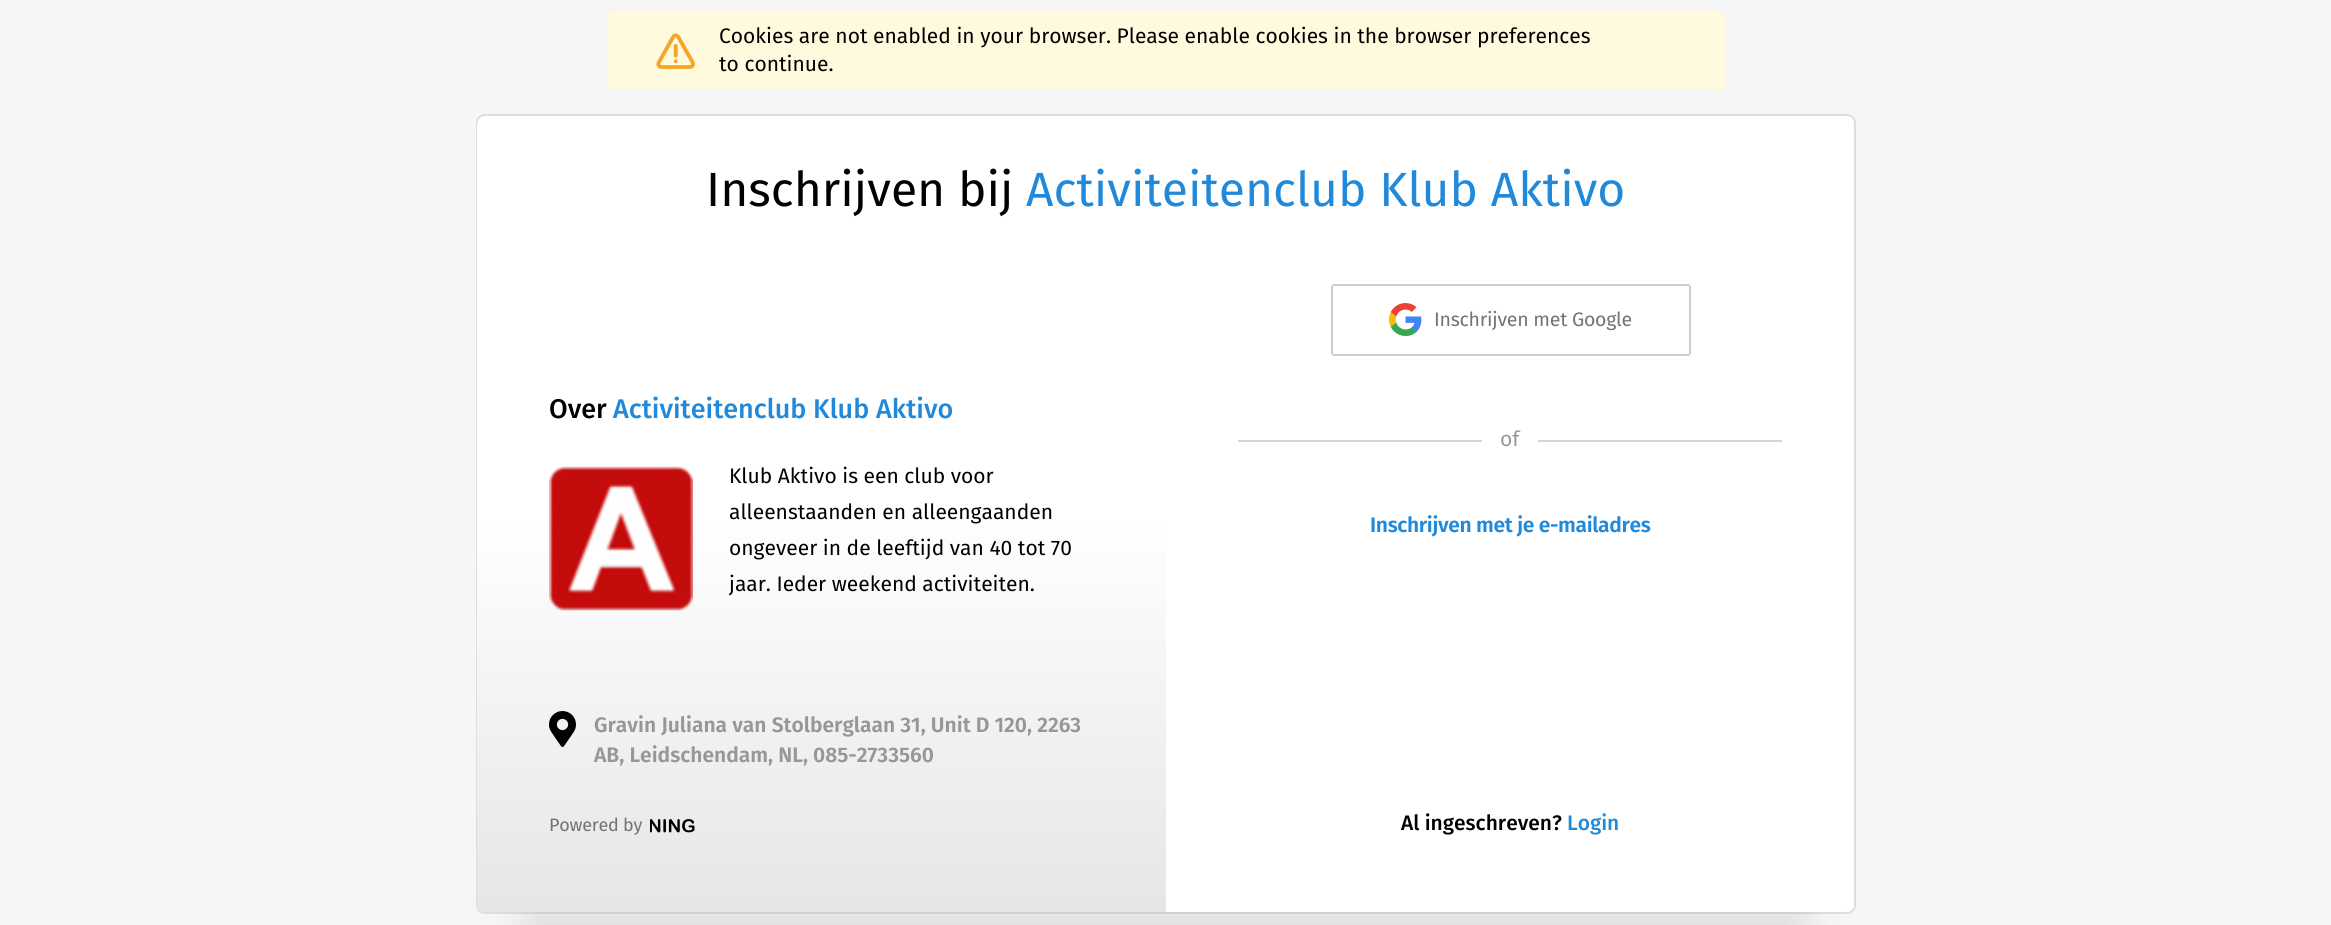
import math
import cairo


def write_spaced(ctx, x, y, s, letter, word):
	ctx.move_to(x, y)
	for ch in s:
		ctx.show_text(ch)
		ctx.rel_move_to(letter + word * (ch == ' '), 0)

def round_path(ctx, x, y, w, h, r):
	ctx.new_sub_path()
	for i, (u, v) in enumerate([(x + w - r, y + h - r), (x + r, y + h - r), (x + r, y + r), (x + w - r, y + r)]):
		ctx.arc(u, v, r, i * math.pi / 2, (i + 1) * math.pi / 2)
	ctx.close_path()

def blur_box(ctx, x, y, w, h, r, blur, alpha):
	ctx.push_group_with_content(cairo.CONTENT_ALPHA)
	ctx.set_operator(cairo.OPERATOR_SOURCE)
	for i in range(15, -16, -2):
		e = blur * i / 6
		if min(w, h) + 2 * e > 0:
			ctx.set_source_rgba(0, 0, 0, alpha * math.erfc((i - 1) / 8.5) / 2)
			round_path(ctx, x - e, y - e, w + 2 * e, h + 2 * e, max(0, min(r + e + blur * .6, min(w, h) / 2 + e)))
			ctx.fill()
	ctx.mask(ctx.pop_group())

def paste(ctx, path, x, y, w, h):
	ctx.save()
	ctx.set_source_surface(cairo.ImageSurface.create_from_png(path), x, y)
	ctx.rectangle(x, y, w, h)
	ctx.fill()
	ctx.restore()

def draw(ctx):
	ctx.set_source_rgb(0.961, 0.961, 0.961)
	ctx.paint()
	ctx.set_source_rgb(1, 0.976, 0.867)
	round_path(ctx, 608, 12, 1117, 78, 5)
	ctx.fill()
	paste(ctx, 'media/1.png', 656, 33, 39, 36)
	ctx.select_font_face('Fira Sans')
	ctx.set_font_size(21)
	ctx.set_source_rgb(0, 0, 0)
	ctx.move_to(719, 43)
	ctx.show_text('Cookies are not enabled in your browser. Please enable cookies in the browser preferences')
	ctx.move_to(719, 71)
	ctx.show_text('to continue.')
	ctx.set_source_rgb(1, 1, 1)
	round_path(ctx, 477, 115, 1378, 798, 8)
	ctx.fill_preserve()
	ctx.set_source_rgb(0.871, 0.871, 0.871)
	ctx.stroke()
	ctx.set_source_rgb(0, 0, 0)
	blur_box(ctx, 531, 912, 1269, 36, 0, 23, 0.12)
	ctx.set_source_rgb(1, 1, 1)
	ctx.new_path()
	ctx.move_to(486, 116)
	ctx.line_to(1166, 116)
	ctx.line_to(1166, 912)
	ctx.line_to(486, 912)
	ctx.curve_to(481, 912, 477, 908, 477, 903)
	ctx.line_to(477, 125)
	ctx.curve_to(477, 120, 481, 116, 486, 116)
	ctx.close_path()
	ctx.fill()
	gradient = cairo.LinearGradient(821, 514, 821, 912)
	gradient.add_color_stop_rgba(0, 0, 0, 0, 0)
	gradient.add_color_stop_rgba(1, 0, 0, 0, 0.1)
	ctx.set_source(gradient)
	ctx.new_path()
	ctx.move_to(477, 515)
	ctx.line_to(1166, 515)
	ctx.line_to(1166, 912)
	ctx.line_to(486, 912)
	ctx.curve_to(481, 912, 477, 908, 477, 903)
	ctx.close_path()
	ctx.fill()
	ctx.set_source_rgb(1, 1, 1)
	ctx.new_path()
	ctx.move_to(1166, 116)
	ctx.line_to(1845, 116)
	ctx.curve_to(1850, 116, 1854, 120, 1854, 125)
	ctx.line_to(1854, 903)
	ctx.curve_to(1854, 908, 1850, 912, 1845, 912)
	ctx.line_to(1166, 912)
	ctx.close_path()
	ctx.fill()
	ctx.set_font_size(48)
	ctx.set_source_rgb(0, 0, 0)
	ctx.move_to(706, 206)
	ctx.show_text('Inschrijven bij')
	ctx.set_source_rgb(0.129, 0.537, 0.855)
	ctx.move_to(1026, 206)
	ctx.show_text('Activiteitenclub Klub Aktivo')
	ctx.select_font_face('Fira Sans Medium')
	ctx.set_font_size(27)
	ctx.set_source_rgb(0, 0, 0)
	ctx.move_to(549, 418)
	ctx.show_text('Over')
	ctx.set_source_rgb(0.129, 0.537, 0.855)
	ctx.move_to(613, 418)
	ctx.show_text('Activiteitenclub Klub Aktivo')
	paste(ctx, 'media/2.png', 549, 466, 144, 145)
	ctx.select_font_face('Fira Sans')
	ctx.set_font_size(21)
	ctx.set_source_rgb(0, 0, 0)
	for x, y, s in [
		(729, 483, 'Klub Aktivo is een club voor'),
		(729, 519, 'alleenstaanden en alleengaanden'),
		(729, 555, 'ongeveer in de leeftijd van 40 tot 70'),
		(729, 591, 'jaar. Ieder weekend activiteiten.'),
	]:
		ctx.move_to(x, y)
		ctx.show_text(s)
	paste(ctx, 'media/3.png', 549, 711, 27, 36)
	ctx.select_font_face('Fira Sans SemiBold')
	ctx.set_source_rgb(0.592, 0.592, 0.592)
	ctx.move_to(594, 732)
	ctx.show_text('Gravin Juliana van Stolberglaan 31, Unit D 120, 2263')
	ctx.move_to(594, 762)
	ctx.show_text('AB, Leidschendam, NL, 085-2733560')
	ctx.select_font_face('Fira Sans')
	ctx.set_font_size(18)
	ctx.set_source_rgb(0.451, 0.451, 0.451)
	write_spaced(ctx, 549, 831, 'Powered by', -0.25, 0)
	paste(ctx, 'media/4.png', 650, 819, 45, 14)
	round_path(ctx, 1332, 285, 358, 70, 2)
	ctx.set_source_rgb(0.808, 0.808, 0.808)
	ctx.stroke()
	paste(ctx, 'media/5.png', 1389, 303, 33, 33)
	ctx.set_font_size(19.5)
	ctx.set_source_rgb(0.451, 0.451, 0.451)
	write_spaced(ctx, 1434, 326, 'Inschrijven met Google', -0.25, 0)
	ctx.set_source_rgb(0.839, 0.839, 0.839)
	ctx.rectangle(1238, 440, 244, 2)
	ctx.fill()
	ctx.set_font_size(21)
	ctx.set_source_rgb(0.592, 0.592, 0.592)
	ctx.move_to(1500, 446)
	ctx.show_text('of')
	ctx.set_source_rgb(0.839, 0.839, 0.839)
	ctx.rectangle(1538, 440, 244, 2)
	ctx.fill()
	ctx.select_font_face('Fira Sans SemiBold')
	ctx.set_source_rgb(0.129, 0.537, 0.855)
	write_spaced(ctx, 1370, 532, 'Inschrijven met je e-mailadres', -0.35, 0)
	ctx.select_font_face('Fira Sans Medium')
	ctx.set_source_rgb(0, 0, 0)
	ctx.move_to(1401, 830)
	ctx.show_text('Al ingeschreven?')
	ctx.set_source_rgb(0.129, 0.537, 0.855)
	ctx.move_to(1567, 830)
	ctx.show_text('Login')


surface = cairo.ImageSurface(cairo.FORMAT_RGB24, 2331, 925)
ctx = cairo.Context(surface)
options = cairo.FontOptions()
options.set_hint_metrics(cairo.HINT_METRICS_OFF)
options.set_hint_style(cairo.HINT_STYLE_NONE)
ctx.set_font_options(options)
ctx.set_miter_limit(4)
draw(ctx)
surface.write_to_png('image.png')
